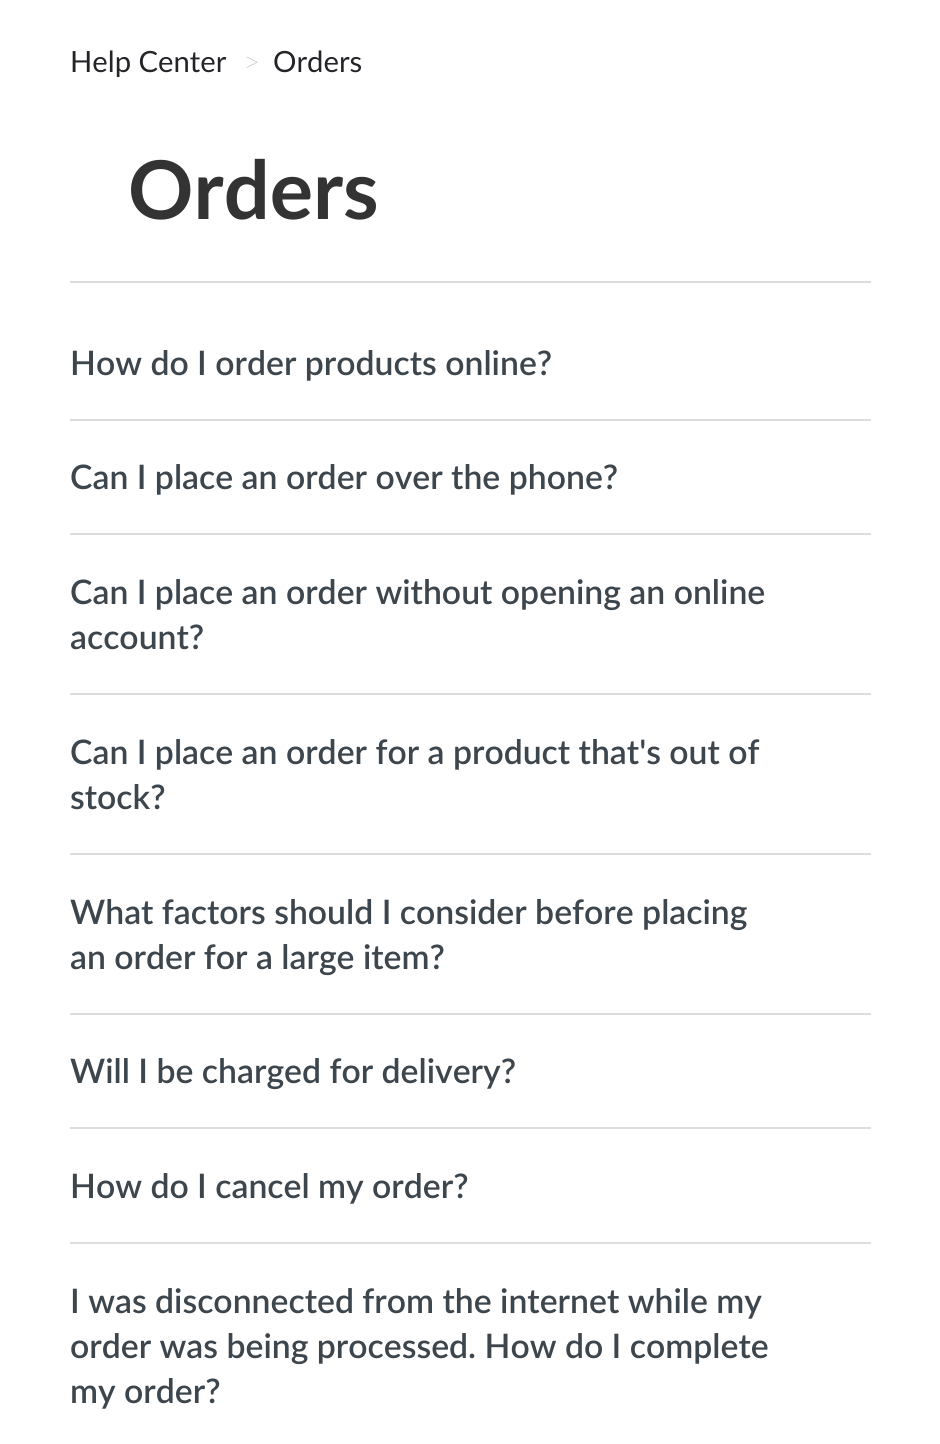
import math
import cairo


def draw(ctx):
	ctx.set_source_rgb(1, 1, 1)
	ctx.paint()
	ctx.select_font_face('Lato')
	ctx.set_font_size(29.25)
	ctx.set_source_rgb(0.141, 0.141, 0.157)
	ctx.move_to(70, 72)
	ctx.show_text('Help Center')
	ctx.select_font_face('Lato ExtraLight')
	ctx.set_source_rgb(0.4, 0.4, 0.4)
	ctx.move_to(243, 72)
	ctx.show_text('>')
	ctx.select_font_face('Lato')
	ctx.set_source_rgb(0.141, 0.141, 0.157)
	ctx.move_to(273, 72)
	ctx.show_text('Orders')
	ctx.set_source_rgb(0.863, 0.863, 0.863)
	ctx.rectangle(70, 281, 801, 2)
	ctx.fill()
	ctx.select_font_face('Lato', cairo.FONT_SLANT_NORMAL, cairo.FONT_WEIGHT_BOLD)
	ctx.set_font_size(81)
	ctx.set_source_rgb(0.2, 0.2, 0.2)
	ctx.move_to(128, 219)
	ctx.show_text('Orders')
	ctx.set_source_rgb(0.867, 0.867, 0.867)
	ctx.rectangle(70, 419, 801, 2)
	ctx.fill()
	ctx.select_font_face('Lato SemiBold')
	ctx.set_font_size(33.75)
	ctx.set_source_rgb(0.239, 0.275, 0.302)
	ctx.move_to(70, 375)
	ctx.show_text('How do I order products online?')
	ctx.set_source_rgb(0.867, 0.867, 0.867)
	ctx.rectangle(70, 533, 801, 2)
	ctx.fill()
	ctx.set_source_rgb(0.239, 0.275, 0.302)
	ctx.move_to(70, 489)
	ctx.show_text('Can I place an order over the phone?')
	ctx.set_source_rgb(0.867, 0.867, 0.867)
	ctx.rectangle(70, 693, 801, 2)
	ctx.fill()
	ctx.set_source_rgb(0.239, 0.275, 0.302)
	ctx.move_to(70, 604)
	ctx.show_text('Can I place an order without opening an online')
	ctx.move_to(70, 649)
	ctx.show_text('account?')
	ctx.set_source_rgb(0.867, 0.867, 0.867)
	ctx.rectangle(70, 853, 801, 2)
	ctx.fill()
	ctx.set_source_rgb(0.239, 0.275, 0.302)
	ctx.move_to(70, 764)
	ctx.show_text('Can I place an order for a product that\'s out of')
	ctx.move_to(70, 809)
	ctx.show_text('stock?')
	ctx.set_source_rgb(0.867, 0.867, 0.867)
	ctx.rectangle(70, 1013, 801, 2)
	ctx.fill()
	ctx.set_source_rgb(0.239, 0.275, 0.302)
	ctx.move_to(70, 924)
	ctx.show_text('What factors should I consider before placing')
	ctx.move_to(70, 969)
	ctx.show_text('an order for a large item?')
	ctx.set_source_rgb(0.867, 0.867, 0.867)
	ctx.rectangle(70, 1127, 801, 2)
	ctx.fill()
	ctx.set_source_rgb(0.239, 0.275, 0.302)
	ctx.move_to(70, 1083)
	ctx.show_text('Will I be charged for delivery?')
	ctx.set_source_rgb(0.867, 0.867, 0.867)
	ctx.rectangle(70, 1242, 801, 2)
	ctx.fill()
	ctx.set_source_rgb(0.239, 0.275, 0.302)
	for x, y, s in [
		(70, 1198, 'How do I cancel my order?'),
		(70, 1313, 'I was disconnected from the internet while my'),
		(70, 1358, 'order was being processed. How do I complete'),
		(70, 1403, 'my order?'),
	]:
		ctx.move_to(x, y)
		ctx.show_text(s)


surface = cairo.ImageSurface(cairo.FORMAT_RGB24, 940, 1444)
ctx = cairo.Context(surface)
options = cairo.FontOptions()
options.set_hint_metrics(cairo.HINT_METRICS_OFF)
options.set_hint_style(cairo.HINT_STYLE_NONE)
ctx.set_font_options(options)
ctx.set_miter_limit(4)
draw(ctx)
surface.write_to_png('image.png')
